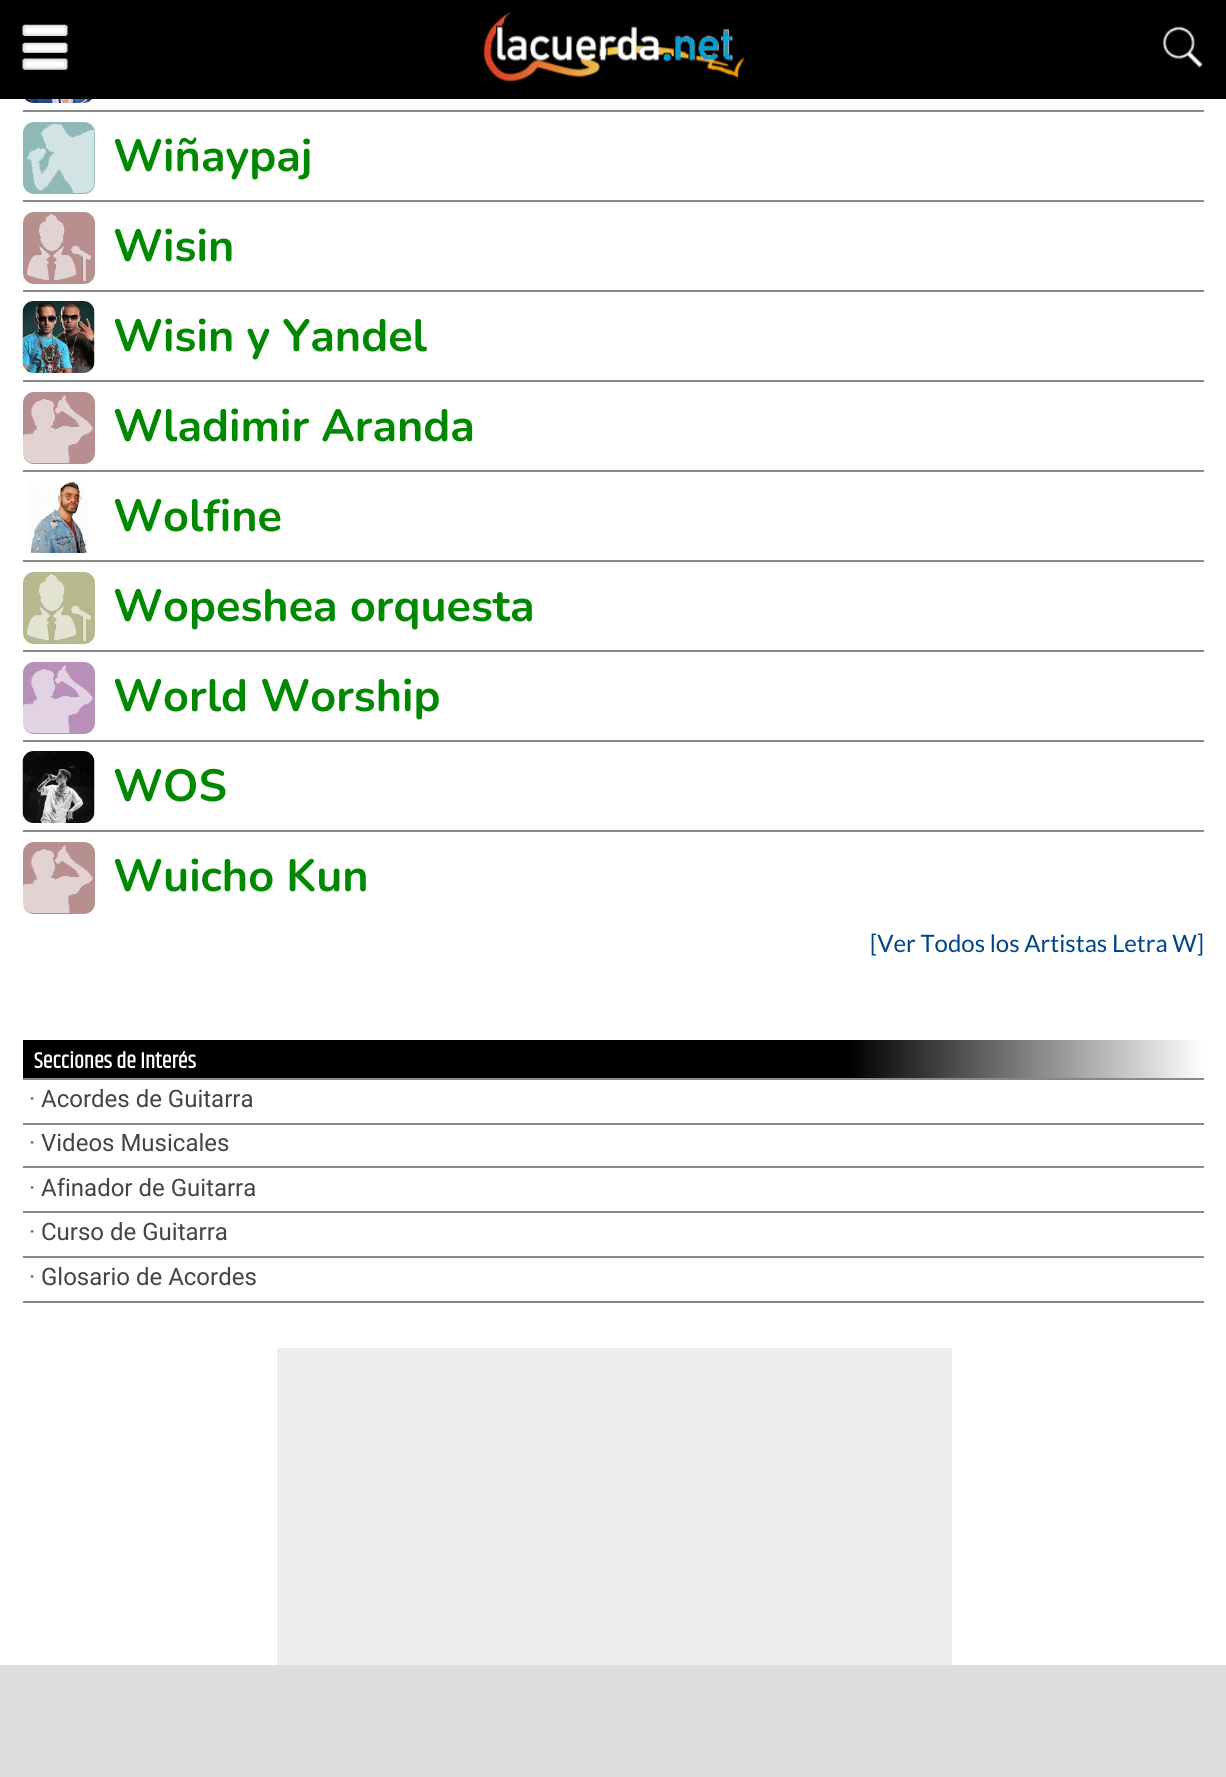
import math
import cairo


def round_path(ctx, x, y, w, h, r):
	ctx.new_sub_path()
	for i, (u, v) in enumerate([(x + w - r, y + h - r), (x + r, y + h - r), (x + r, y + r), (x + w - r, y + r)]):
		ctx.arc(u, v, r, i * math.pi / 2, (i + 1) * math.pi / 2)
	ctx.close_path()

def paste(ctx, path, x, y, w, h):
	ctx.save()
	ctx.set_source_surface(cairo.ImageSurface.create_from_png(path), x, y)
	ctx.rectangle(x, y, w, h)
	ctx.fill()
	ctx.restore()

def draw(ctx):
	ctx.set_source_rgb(1, 1, 1)
	ctx.paint()
	ctx.set_source_rgb(0, 0, 0)
	ctx.rectangle(0, 0, 1226, 99)
	ctx.fill()
	paste(ctx, 'media/1.png', 22, 24, 46, 46)
	paste(ctx, 'media/2.png', 483, 12, 262, 70)
	paste(ctx, 'media/3.png', 1163, 26, 40, 43)
	ctx.set_source_rgb(0.533, 0.533, 0.533)
	ctx.rectangle(23, 110, 1181, 2)
	ctx.fill()
	paste(ctx, 'media/4.png', 25, 99, 67, 4)
	ctx.rectangle(23, 200, 1181, 2)
	ctx.fill()
	ctx.set_source_rgb(0.561, 0.722, 0.722)
	round_path(ctx, 23, 122, 72, 72, 11)
	ctx.fill()
	paste(ctx, 'media/5.png', 27, 123, 68, 70)
	ctx.select_font_face('Nunito', cairo.FONT_SLANT_NORMAL, cairo.FONT_WEIGHT_BOLD)
	ctx.set_font_size(45)
	ctx.set_source_rgb(0, 0.533, 0)
	ctx.move_to(113, 171)
	ctx.show_text('Wiñaypaj')
	ctx.set_source_rgb(0.533, 0.533, 0.533)
	ctx.rectangle(23, 290, 1181, 2)
	ctx.fill()
	ctx.set_source_rgb(0.722, 0.561, 0.561)
	round_path(ctx, 23, 212, 72, 72, 11)
	ctx.fill()
	paste(ctx, 'media/6.png', 26, 213, 65, 69)
	ctx.set_source_rgb(0, 0.533, 0)
	ctx.move_to(113, 261)
	ctx.show_text('Wisin')
	ctx.set_source_rgb(0.533, 0.533, 0.533)
	ctx.rectangle(23, 380, 1181, 2)
	ctx.fill()
	paste(ctx, 'media/7.png', 22, 301, 73, 72)
	ctx.set_source_rgb(0, 0.533, 0)
	ctx.move_to(113, 351)
	ctx.show_text('Wisin y Yandel')
	ctx.set_source_rgb(0.533, 0.533, 0.533)
	ctx.rectangle(23, 470, 1181, 2)
	ctx.fill()
	ctx.set_source_rgb(0.722, 0.561, 0.561)
	round_path(ctx, 23, 392, 72, 72, 11)
	ctx.fill()
	paste(ctx, 'media/8.png', 23, 395, 70, 68)
	ctx.set_source_rgb(0, 0.533, 0)
	ctx.move_to(113, 441)
	ctx.show_text('Wladimir Aranda')
	ctx.set_source_rgb(0.533, 0.533, 0.533)
	ctx.rectangle(23, 560, 1181, 2)
	ctx.fill()
	paste(ctx, 'media/9.png', 28, 481, 60, 72)
	ctx.set_source_rgb(0, 0.533, 0)
	ctx.move_to(113, 531)
	ctx.show_text('Wolfine')
	ctx.set_source_rgb(0.533, 0.533, 0.533)
	ctx.rectangle(23, 650, 1181, 2)
	ctx.fill()
	ctx.set_source_rgb(0.722, 0.722, 0.561)
	round_path(ctx, 23, 572, 72, 72, 11)
	ctx.fill()
	paste(ctx, 'media/10.png', 26, 573, 65, 69)
	ctx.set_source_rgb(0, 0.533, 0)
	ctx.move_to(113, 621)
	ctx.show_text('Wopeshea orquesta')
	ctx.set_source_rgb(0.533, 0.533, 0.533)
	ctx.rectangle(23, 740, 1181, 2)
	ctx.fill()
	ctx.set_source_rgb(0.722, 0.561, 0.722)
	round_path(ctx, 23, 662, 72, 72, 11)
	ctx.fill()
	paste(ctx, 'media/11.png', 23, 665, 70, 68)
	ctx.set_source_rgb(0, 0.533, 0)
	ctx.move_to(113, 711)
	ctx.show_text('World Worship')
	ctx.set_source_rgb(0.533, 0.533, 0.533)
	ctx.rectangle(23, 830, 1181, 2)
	ctx.fill()
	paste(ctx, 'media/12.png', 22, 751, 73, 72)
	ctx.set_source_rgb(0, 0.533, 0)
	ctx.move_to(113, 801)
	ctx.show_text('WOS')
	ctx.set_source_rgb(0.722, 0.561, 0.561)
	round_path(ctx, 23, 842, 72, 72, 11)
	ctx.fill()
	paste(ctx, 'media/8.png', 23, 845, 70, 68)
	ctx.set_source_rgb(0, 0.533, 0)
	ctx.move_to(113, 891)
	ctx.show_text('Wuicho Kun')
	ctx.select_font_face('Lato')
	ctx.set_font_size(24)
	ctx.set_source_rgb(0, 0.267, 0.533)
	ctx.move_to(870, 952)
	ctx.show_text('[Ver Todos los Artistas Letra W]')
	gradient = cairo.LinearGradient(23, 973, 1204, 973)
	gradient.add_color_stop_rgba(0, 0, 0, 0, 1)
	gradient.add_color_stop_rgba(0.7, 0, 0, 0, 1)
	gradient.add_color_stop_rgba(1, 1, 1, 1, 1)
	ctx.set_source(gradient)
	ctx.rectangle(23, 1040, 1178, 38)
	ctx.fill()
	ctx.set_source_rgb(0.533, 0.533, 0.533)
	ctx.rectangle(23, 1078, 1181, 2)
	ctx.fill()
	ctx.select_font_face('Khand', cairo.FONT_SLANT_NORMAL, cairo.FONT_WEIGHT_BOLD)
	ctx.set_font_size(22.5)
	ctx.set_source_rgb(1, 1, 1)
	ctx.move_to(34, 1068)
	ctx.show_text('Secciones de Interés')
	ctx.set_source_rgb(0.533, 0.533, 0.533)
	ctx.rectangle(23, 1123, 1181, 2)
	ctx.fill()
	ctx.select_font_face('Roboto')
	ctx.set_font_size(24)
	ctx.set_source_rgb(0.4, 0.4, 0.4)
	ctx.move_to(29, 1107)
	ctx.show_text('·')
	ctx.set_source_rgb(0.267, 0.267, 0.267)
	ctx.move_to(41, 1107)
	ctx.show_text('Acordes de Guitarra')
	ctx.set_source_rgb(0.533, 0.533, 0.533)
	ctx.rectangle(23, 1166, 1181, 2)
	ctx.fill()
	ctx.set_source_rgb(0.4, 0.4, 0.4)
	ctx.move_to(29, 1151)
	ctx.show_text('·')
	ctx.set_source_rgb(0.267, 0.267, 0.267)
	ctx.move_to(41, 1151)
	ctx.show_text('Videos Musicales')
	ctx.set_source_rgb(0.533, 0.533, 0.533)
	ctx.rectangle(23, 1211, 1181, 2)
	ctx.fill()
	ctx.set_source_rgb(0.4, 0.4, 0.4)
	ctx.move_to(29, 1196)
	ctx.show_text('·')
	ctx.set_source_rgb(0.267, 0.267, 0.267)
	ctx.move_to(41, 1196)
	ctx.show_text('Afinador de Guitarra')
	ctx.set_source_rgb(0.533, 0.533, 0.533)
	ctx.rectangle(23, 1256, 1181, 2)
	ctx.fill()
	ctx.set_source_rgb(0.4, 0.4, 0.4)
	ctx.move_to(29, 1240)
	ctx.show_text('·')
	ctx.set_source_rgb(0.267, 0.267, 0.267)
	ctx.move_to(41, 1240)
	ctx.show_text('Curso de Guitarra')
	ctx.set_source_rgb(0.533, 0.533, 0.533)
	ctx.rectangle(23, 1301, 1181, 2)
	ctx.fill()
	ctx.set_source_rgb(0.4, 0.4, 0.4)
	ctx.move_to(29, 1285)
	ctx.show_text('·')
	ctx.set_source_rgb(0.267, 0.267, 0.267)
	ctx.move_to(41, 1285)
	ctx.show_text('Glosario de Acordes')
	ctx.set_source_rgb(0.933, 0.933, 0.933)
	ctx.rectangle(277, 1348, 675, 317)
	ctx.fill()
	ctx.set_source_rgb(0.867, 0.867, 0.867)
	ctx.rectangle(0, 1665, 1226, 112)
	ctx.fill()


surface = cairo.ImageSurface(cairo.FORMAT_RGB24, 1226, 1777)
ctx = cairo.Context(surface)
options = cairo.FontOptions()
options.set_hint_metrics(cairo.HINT_METRICS_OFF)
options.set_hint_style(cairo.HINT_STYLE_NONE)
ctx.set_font_options(options)
ctx.set_miter_limit(4)
draw(ctx)
surface.write_to_png('image.png')
